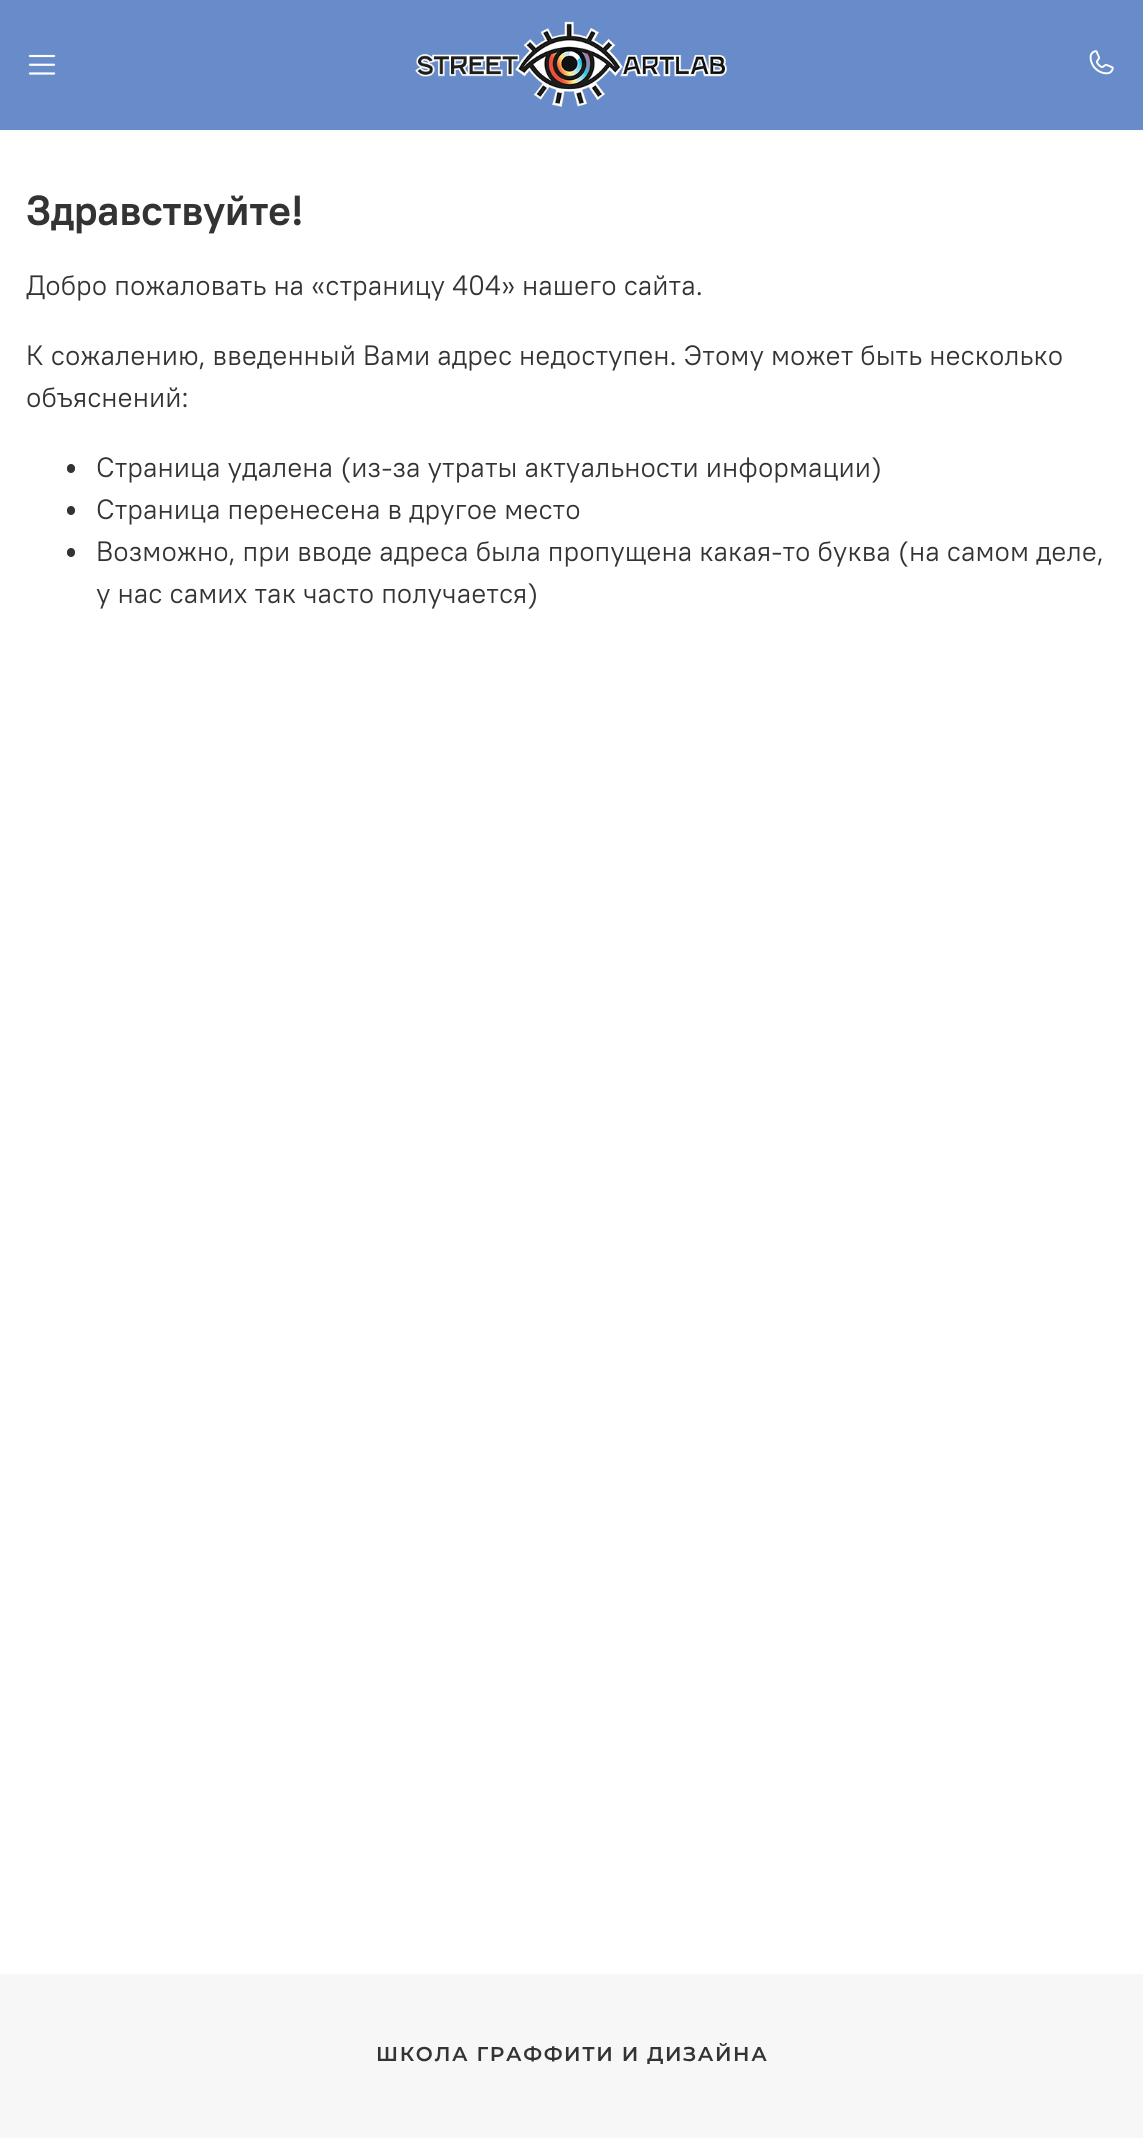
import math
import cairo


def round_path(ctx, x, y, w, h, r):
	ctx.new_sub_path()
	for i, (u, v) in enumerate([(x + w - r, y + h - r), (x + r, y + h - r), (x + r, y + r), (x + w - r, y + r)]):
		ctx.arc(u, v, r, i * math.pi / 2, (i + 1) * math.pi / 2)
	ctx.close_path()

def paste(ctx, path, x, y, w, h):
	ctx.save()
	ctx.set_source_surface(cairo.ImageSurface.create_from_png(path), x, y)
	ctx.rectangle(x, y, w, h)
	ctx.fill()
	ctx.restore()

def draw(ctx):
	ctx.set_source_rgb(1, 1, 1)
	ctx.paint()
	ctx.set_source_rgb(0.408, 0.549, 0.788)
	ctx.rectangle(0, 0, 1143, 130)
	ctx.fill()
	paste(ctx, 'media/1.png', 28, 54, 28, 21)
	paste(ctx, 'media/2.png', 415, 21, 312, 86)
	paste(ctx, 'media/3.png', 1089, 50, 25, 25)
	ctx.select_font_face('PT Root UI', cairo.FONT_SLANT_NORMAL, cairo.FONT_WEIGHT_BOLD)
	ctx.set_font_size(42)
	ctx.set_source_rgb(0.2, 0.2, 0.2)
	ctx.move_to(26, 225)
	ctx.show_text('Здравствуйте!')
	ctx.select_font_face('PT Root UI')
	ctx.set_font_size(28)
	for x, y, s in [
		(26, 295, 'Добро пожаловать на «страницу 404» нашего сайта.'),
		(26, 365, 'К сожалению, введенный Вами адрес недоступен. Этому может быть несколько'),
		(26, 407, 'объяснений:'),
	]:
		ctx.move_to(x, y)
		ctx.show_text(s)
	round_path(ctx, 67, 464, 8, 9, 4)
	ctx.fill()
	ctx.move_to(96, 477)
	ctx.show_text('Страница удалена (из-за утраты актуальности информации)')
	round_path(ctx, 67, 506, 8, 9, 4)
	ctx.fill()
	ctx.move_to(96, 519)
	ctx.show_text('Страница перенесена в другое место')
	round_path(ctx, 67, 548, 8, 9, 4)
	ctx.fill()
	ctx.move_to(96, 561)
	ctx.show_text('Возможно, при вводе адреса была пропущена какая-то буква (на самом деле,')
	ctx.move_to(96, 603)
	ctx.show_text('у нас самих так часто получается)')
	ctx.set_source_rgb(0.965, 0.965, 0.969)
	ctx.rectangle(0, 1974, 1143, 164)
	ctx.fill()
	paste(ctx, 'media/4.png', 378, 2043, 389, 21)


surface = cairo.ImageSurface(cairo.FORMAT_RGB24, 1143, 2138)
ctx = cairo.Context(surface)
options = cairo.FontOptions()
options.set_hint_metrics(cairo.HINT_METRICS_OFF)
options.set_hint_style(cairo.HINT_STYLE_NONE)
ctx.set_font_options(options)
ctx.set_miter_limit(4)
draw(ctx)
surface.write_to_png('image.png')
